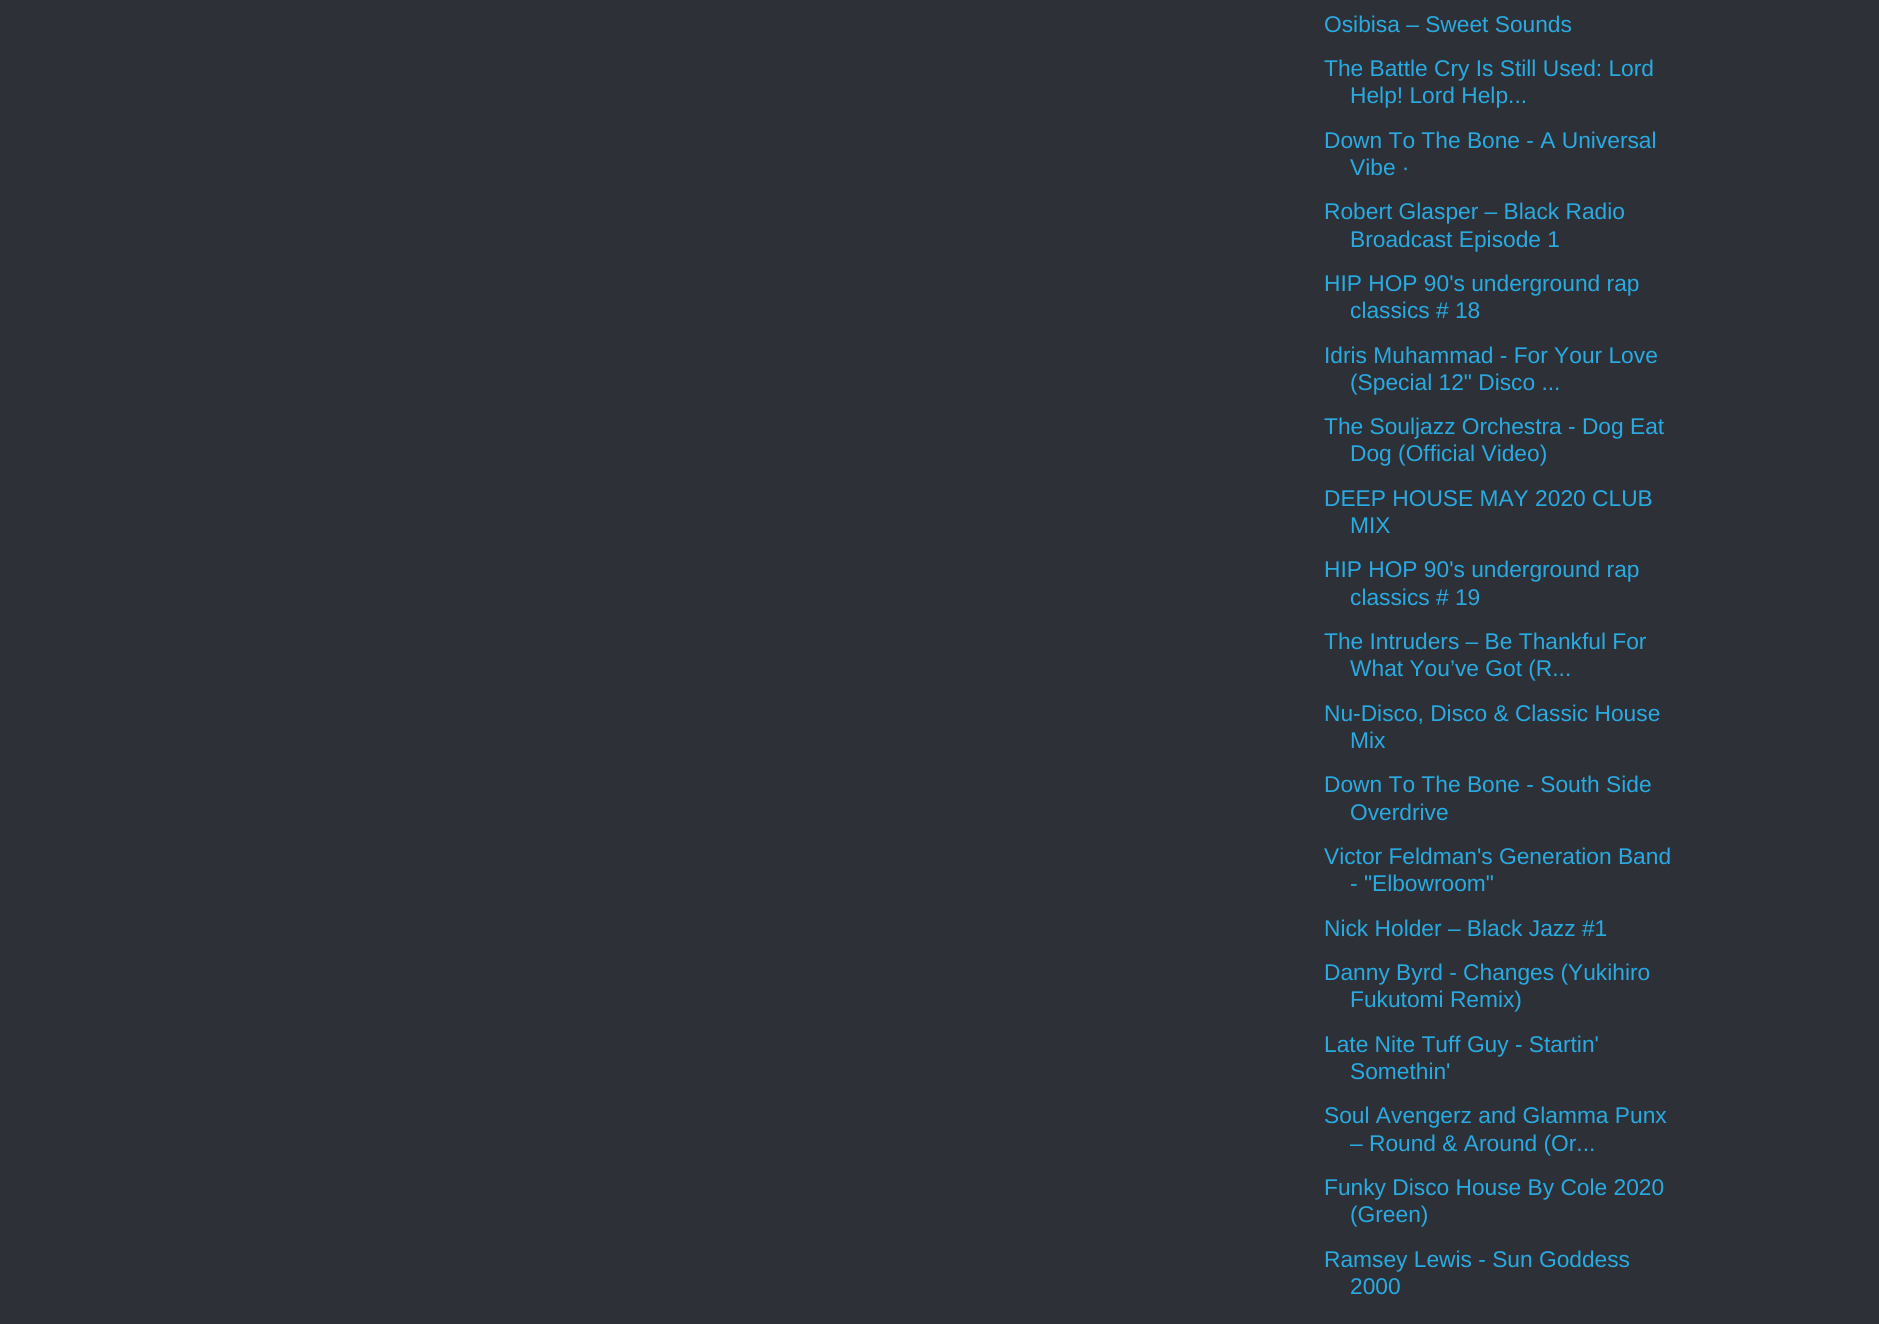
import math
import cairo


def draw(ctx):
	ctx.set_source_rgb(0.176, 0.188, 0.216)
	ctx.paint()
	ctx.select_font_face('Liberation Sans')
	ctx.set_font_size(22.75)
	ctx.set_source_rgb(0.161, 0.667, 0.882)
	for x, y, s in [
		(1324, 32, 'Osibisa – Sweet Sounds'),
		(1324, 76, 'The Battle Cry Is Still Used: Lord'),
		(1350, 103, 'Help! Lord Help...'),
		(1324, 148, 'Down To The Bone - A Universal'),
		(1350, 175, 'Vibe ·'),
		(1324, 219, 'Robert Glasper – Black Radio'),
		(1350, 247, 'Broadcast Episode 1'),
		(1324, 291, 'HIP HOP 90\'s underground rap'),
		(1350, 318, 'classics # 18'),
		(1324, 363, 'Idris Muhammad - For Your Love'),
		(1350, 390, '(Special 12" Disco ...'),
		(1324, 434, 'The Souljazz Orchestra - Dog Eat'),
		(1350, 461, 'Dog (Official Video)'),
		(1324, 506, 'DEEP HOUSE MAY 2020 CLUB'),
		(1350, 533, 'MIX'),
		(1324, 577, 'HIP HOP 90\'s underground rap'),
		(1350, 605, 'classics # 19'),
		(1324, 649, 'The Intruders – Be Thankful For'),
		(1350, 676, 'What You’ve Got (R...'),
		(1324, 721, 'Nu-Disco, Disco & Classic House'),
		(1350, 748, 'Mix'),
		(1324, 792, 'Down To The Bone - South Side'),
		(1350, 820, 'Overdrive'),
		(1324, 864, 'Victor Feldman\'s Generation Band'),
		(1350, 891, '- "Elbowroom"'),
		(1324, 936, 'Nick Holder – Black Jazz #1'),
		(1324, 980, 'Danny Byrd - Changes (Yukihiro'),
		(1350, 1007, 'Fukutomi Remix)'),
		(1324, 1052, 'Late Nite Tuff Guy - Startin\''),
		(1350, 1079, 'Somethin\''),
		(1324, 1123, 'Soul Avengerz and Glamma Punx'),
		(1350, 1151, '– Round & Around (Or...'),
		(1324, 1195, 'Funky Disco House By Cole 2020'),
		(1350, 1222, '(Green)'),
		(1324, 1267, 'Ramsey Lewis - Sun Goddess'),
		(1350, 1294, '2000'),
	]:
		ctx.move_to(x, y)
		ctx.show_text(s)


surface = cairo.ImageSurface(cairo.FORMAT_RGB24, 1879, 1324)
ctx = cairo.Context(surface)
options = cairo.FontOptions()
options.set_hint_metrics(cairo.HINT_METRICS_OFF)
options.set_hint_style(cairo.HINT_STYLE_NONE)
ctx.set_font_options(options)
ctx.set_miter_limit(4)
draw(ctx)
surface.write_to_png('image.png')
